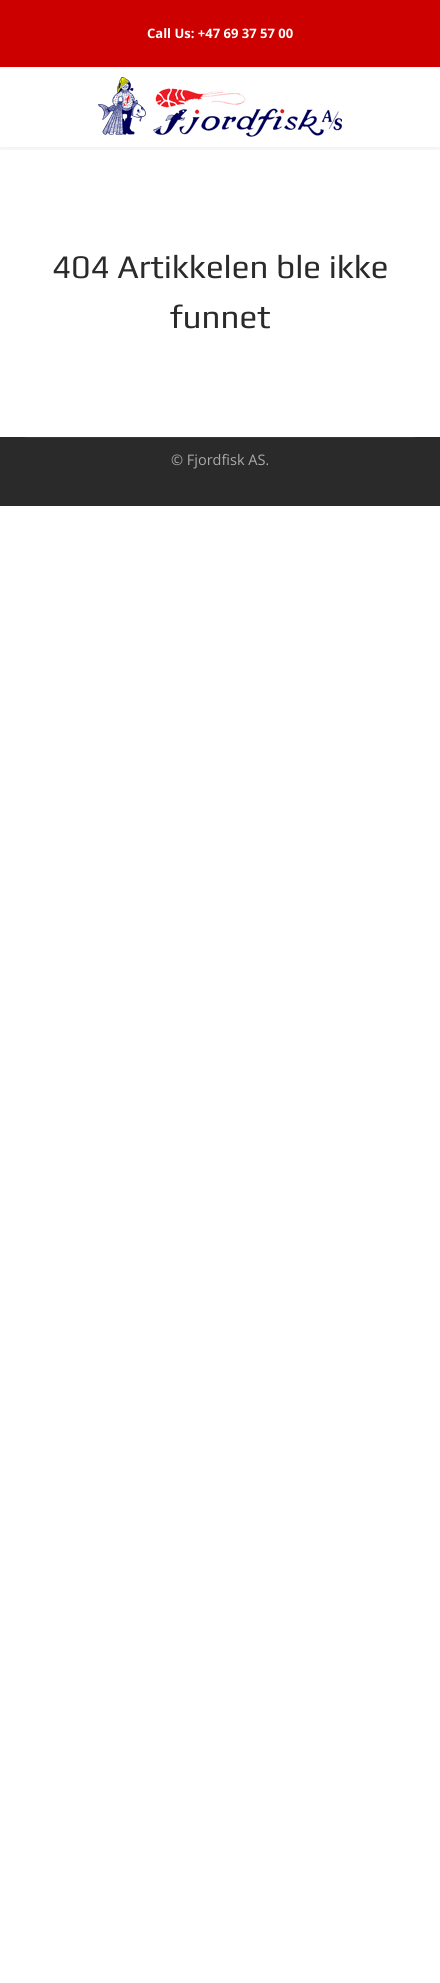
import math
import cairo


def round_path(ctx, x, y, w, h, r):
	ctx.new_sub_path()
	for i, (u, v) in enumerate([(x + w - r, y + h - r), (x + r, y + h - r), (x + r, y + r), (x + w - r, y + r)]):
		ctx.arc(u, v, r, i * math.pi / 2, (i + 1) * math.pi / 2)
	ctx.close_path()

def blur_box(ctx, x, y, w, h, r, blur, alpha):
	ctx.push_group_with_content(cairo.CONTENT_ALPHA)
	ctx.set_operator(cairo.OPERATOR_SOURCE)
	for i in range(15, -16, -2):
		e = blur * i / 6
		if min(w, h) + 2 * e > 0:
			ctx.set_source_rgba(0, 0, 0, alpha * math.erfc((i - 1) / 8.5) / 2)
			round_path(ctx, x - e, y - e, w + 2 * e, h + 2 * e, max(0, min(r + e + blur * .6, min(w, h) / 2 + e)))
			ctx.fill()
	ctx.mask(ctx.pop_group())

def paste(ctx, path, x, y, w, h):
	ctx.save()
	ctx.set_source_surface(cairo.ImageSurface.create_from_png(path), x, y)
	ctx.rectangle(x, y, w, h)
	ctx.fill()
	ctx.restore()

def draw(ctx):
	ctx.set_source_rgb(1, 1, 1)
	ctx.paint()
	ctx.set_source_rgb(0.804, 0, 0)
	ctx.rectangle(0, 0, 440, 67)
	ctx.fill()
	ctx.select_font_face('Open Sans', cairo.FONT_SLANT_NORMAL, cairo.FONT_WEIGHT_BOLD)
	ctx.set_font_size(13)
	ctx.set_source_rgb(1, 1, 1)
	ctx.move_to(147, 38)
	ctx.show_text('Call Us: +47 69 37 57 00')
	ctx.save()
	ctx.rectangle(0, 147, 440, 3)
	ctx.clip()
	ctx.set_source_rgb(0, 0, 0)
	blur_box(ctx, 0, 70, 440, 80, 0, 1.5, 0.05)
	ctx.restore()
	paste(ctx, 'media/1.png', 98, 77, 244, 60)
	ctx.select_font_face('Play')
	ctx.set_font_size(33.1)
	ctx.set_source_rgb(0.165, 0.165, 0.165)
	ctx.move_to(52, 278)
	ctx.show_text('404 Artikkelen ble ikke')
	ctx.move_to(170, 328)
	ctx.show_text('funnet')
	ctx.rectangle(0, 437, 440, 69)
	ctx.fill()
	ctx.set_source_rgb(0.216, 0.216, 0.216)
	ctx.rectangle(25, 437, 390, 1)
	ctx.fill()
	ctx.select_font_face('Open Sans')
	ctx.set_font_size(14.5)
	ctx.set_source_rgb(0.667, 0.667, 0.667)
	ctx.move_to(171, 465)
	ctx.show_text('© Fjordfisk AS.')


surface = cairo.ImageSurface(cairo.FORMAT_RGB24, 440, 1983)
ctx = cairo.Context(surface)
options = cairo.FontOptions()
options.set_hint_metrics(cairo.HINT_METRICS_OFF)
options.set_hint_style(cairo.HINT_STYLE_NONE)
ctx.set_font_options(options)
ctx.set_miter_limit(4)
draw(ctx)
surface.write_to_png('image.png')
